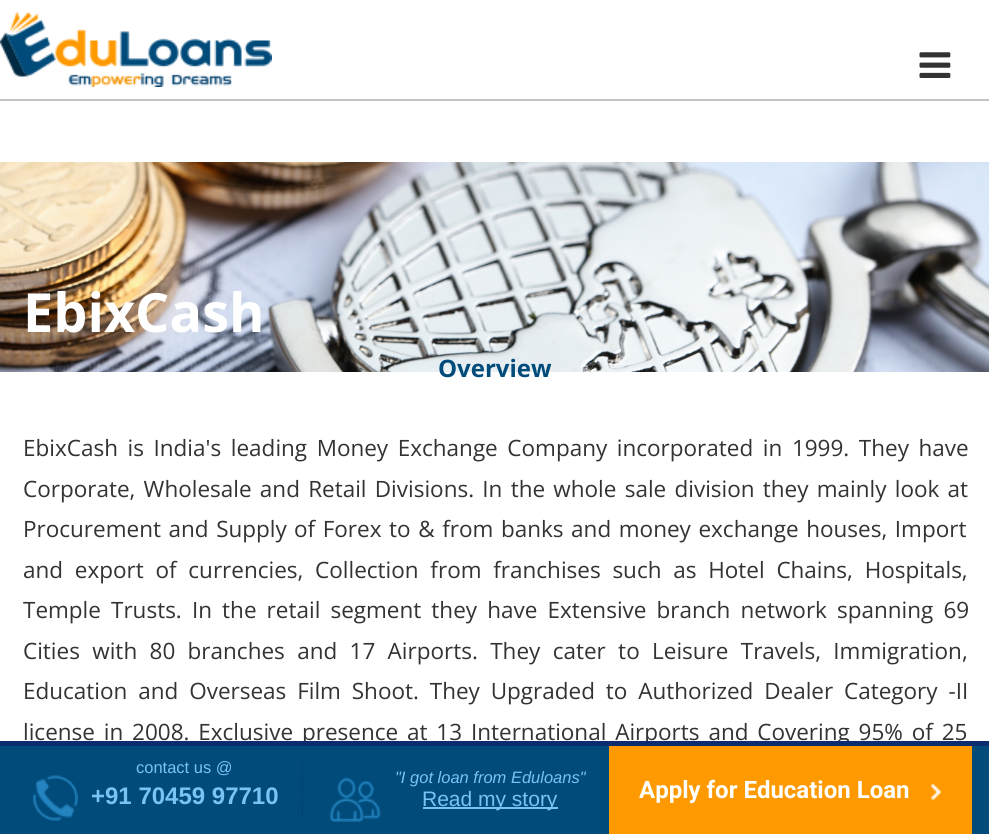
import math
import cairo


def write_spaced(ctx, x, y, s, letter, word):
	ctx.move_to(x, y)
	for ch in s:
		ctx.show_text(ch)
		ctx.rel_move_to(letter + word * (ch == ' '), 0)

def paste(ctx, path, x, y, w, h):
	ctx.save()
	ctx.set_source_surface(cairo.ImageSurface.create_from_png(path), x, y)
	ctx.rectangle(x, y, w, h)
	ctx.fill()
	ctx.restore()

def draw(ctx):
	ctx.set_source_rgb(1, 1, 1)
	ctx.paint()
	ctx.set_source_rgb(0.765, 0.765, 0.765)
	ctx.rectangle(0, 99, 989, 2)
	ctx.fill()
	paste(ctx, 'media/1.png', 0, 12, 272, 75)
	paste(ctx, 'media/2.png', 919, 52, 32, 26)
	paste(ctx, 'media/3.png', 0, 162, 989, 210)
	ctx.select_font_face('Open Sans', cairo.FONT_SLANT_NORMAL, cairo.FONT_WEIGHT_BOLD)
	ctx.set_font_size(54)
	ctx.set_source_rgb(1, 1, 1)
	ctx.move_to(23, 332)
	ctx.show_text('EbixCash')
	ctx.set_font_size(24)
	ctx.set_source_rgb(0, 0.294, 0.478)
	ctx.move_to(438, 377)
	ctx.show_text('Overview')
	ctx.select_font_face('Open Sans')
	ctx.set_font_size(22.5)
	ctx.set_source_rgb(0.2, 0.2, 0.2)
	write_spaced(ctx, 23, 456, 'EbixCash is India\'s leading Money Exchange Company incorporated in 1999. They have', 0, 3.75)
	write_spaced(ctx, 23, 497, 'Corporate, Wholesale and Retail Divisions. In the whole sale division they mainly look at', 0, 2.4)
	write_spaced(ctx, 23, 537, 'Procurement and Supply', 0, 1.75)
	write_spaced(ctx, 294, 537, 'of Forex to & from banks and money exchange houses, Import', 0, 1.75)
	write_spaced(ctx, 23, 578, 'and export of currencies, Collection from franchises such as Hotel Chains, Hospitals,', 0, 5.9)
	write_spaced(ctx, 23, 618, 'Temple Trusts. In the retail segment they have Extensive branch network spanning 69', 0, 4.25)
	write_spaced(ctx, 23, 659, 'Cities with 80 branches and 17 Airports. They cater to Leisure Travels, Immigration,', 0, 6.5)
	write_spaced(ctx, 23, 699, 'Education and Overseas Film Shoot. They Upgraded to Authorized Dealer Category -II', 0, 5)
	write_spaced(ctx, 23, 740, 'license in 2008. Exclusive presence at 13 International Airports and Covering 95% of 25', 0, 3)
	ctx.set_source_rgb(0, 0.294, 0.478)
	ctx.rectangle(0, 746, 989, 88)
	ctx.fill()
	ctx.set_source_rgb(0.043, 0.173, 0.431)
	ctx.rectangle(0, 741, 989, 5)
	ctx.fill()
	paste(ctx, 'media/4.png', 33, 775, 45, 46)
	ctx.select_font_face('Liberation Sans')
	ctx.set_font_size(16.5)
	ctx.set_source_rgb(0.463, 0.765, 0.957)
	ctx.move_to(136, 773)
	ctx.show_text('contact us @')
	ctx.select_font_face('Liberation Sans', cairo.FONT_SLANT_NORMAL, cairo.FONT_WEIGHT_BOLD)
	ctx.set_font_size(24)
	ctx.move_to(91, 804)
	ctx.show_text('+91 70459 97710')
	paste(ctx, 'media/5.png', 301, 763, 2, 53)
	paste(ctx, 'media/6.png', 329, 777, 52, 45)
	ctx.select_font_face('Liberation Sans', cairo.FONT_SLANT_ITALIC)
	ctx.set_font_size(16.5)
	ctx.move_to(395, 783)
	ctx.show_text('"I got loan from Eduloans"')
	ctx.rectangle(423, 807, 135, 2)
	ctx.fill()
	ctx.select_font_face('Liberation Sans')
	ctx.set_font_size(21)
	ctx.move_to(422, 806)
	ctx.show_text('Read my story')
	ctx.set_source_rgb(1, 0.6, 0)
	ctx.rectangle(609, 746, 363, 88)
	ctx.fill()
	ctx.select_font_face('Roboto', cairo.FONT_SLANT_NORMAL, cairo.FONT_WEIGHT_BOLD)
	ctx.set_font_size(24)
	ctx.set_source_rgb(1, 1, 1)
	ctx.move_to(639, 798)
	ctx.show_text('Apply for Education Loan')
	paste(ctx, 'media/7.png', 930, 783, 12, 17)


surface = cairo.ImageSurface(cairo.FORMAT_RGB24, 989, 834)
ctx = cairo.Context(surface)
options = cairo.FontOptions()
options.set_hint_metrics(cairo.HINT_METRICS_OFF)
options.set_hint_style(cairo.HINT_STYLE_NONE)
ctx.set_font_options(options)
ctx.set_miter_limit(4)
draw(ctx)
surface.write_to_png('image.png')
